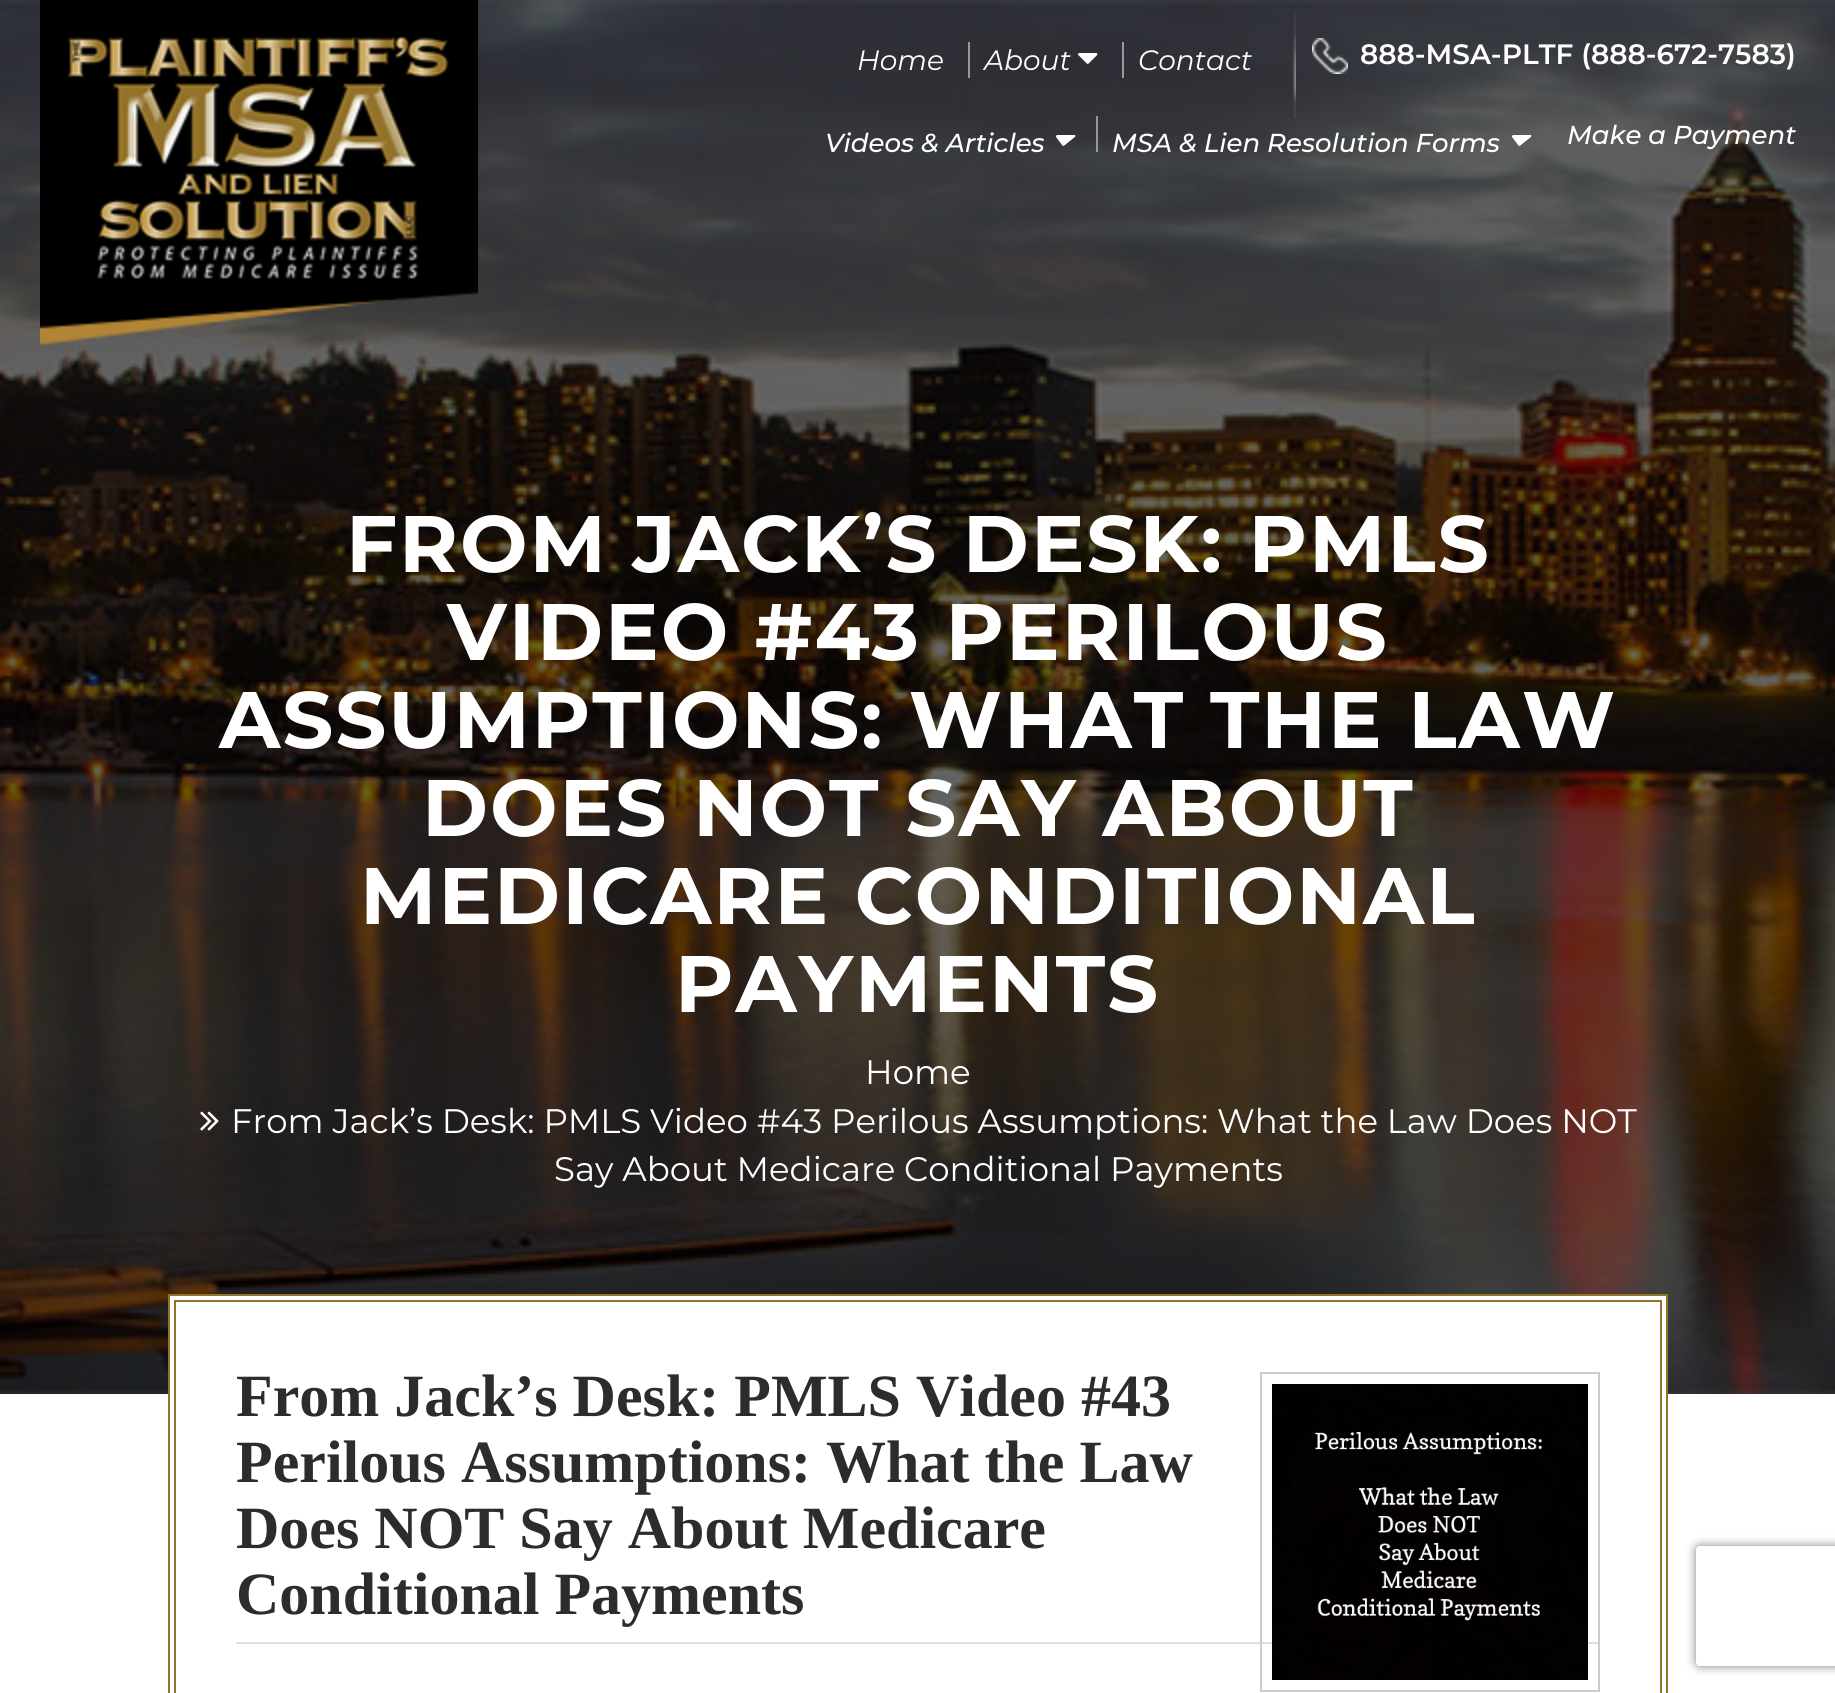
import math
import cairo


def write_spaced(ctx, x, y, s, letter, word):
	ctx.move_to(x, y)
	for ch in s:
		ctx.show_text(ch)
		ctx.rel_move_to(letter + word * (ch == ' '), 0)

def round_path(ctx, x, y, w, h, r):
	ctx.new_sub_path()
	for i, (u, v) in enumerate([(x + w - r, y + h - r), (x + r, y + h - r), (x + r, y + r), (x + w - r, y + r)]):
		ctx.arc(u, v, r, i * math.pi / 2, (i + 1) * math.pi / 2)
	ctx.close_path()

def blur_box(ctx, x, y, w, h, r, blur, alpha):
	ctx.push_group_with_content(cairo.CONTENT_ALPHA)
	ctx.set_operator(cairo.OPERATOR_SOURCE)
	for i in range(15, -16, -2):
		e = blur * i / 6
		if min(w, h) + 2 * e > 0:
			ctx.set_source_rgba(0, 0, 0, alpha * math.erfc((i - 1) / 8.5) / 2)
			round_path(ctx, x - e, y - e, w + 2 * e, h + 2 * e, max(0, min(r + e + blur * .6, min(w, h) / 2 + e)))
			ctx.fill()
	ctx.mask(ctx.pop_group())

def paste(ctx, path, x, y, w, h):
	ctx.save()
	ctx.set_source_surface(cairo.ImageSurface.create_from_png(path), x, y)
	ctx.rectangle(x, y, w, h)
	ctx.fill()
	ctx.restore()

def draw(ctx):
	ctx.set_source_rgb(1, 1, 1)
	ctx.paint()
	paste(ctx, 'media/7.png', 0, 0, 1835, 1394)
	paste(ctx, 'media/1.png', 40, 0, 438, 346)
	ctx.select_font_face('Montserrat', cairo.FONT_SLANT_ITALIC)
	ctx.set_font_size(28)
	ctx.set_source_rgb(1, 1, 1)
	ctx.move_to(857, 70)
	ctx.show_text('Home')
	ctx.set_source_rgb(0.584, 0.6, 0.6)
	ctx.rectangle(968, 42, 2, 36)
	ctx.fill()
	ctx.set_source_rgb(1, 1, 1)
	ctx.move_to(984, 70)
	ctx.show_text('About')
	paste(ctx, 'media/2.png', 1078, 53, 20, 11)
	ctx.set_source_rgb(0.584, 0.6, 0.6)
	ctx.rectangle(1122, 42, 2, 36)
	ctx.fill()
	ctx.set_source_rgb(1, 1, 1)
	ctx.move_to(1138, 70)
	ctx.show_text('Contact')
	paste(ctx, 'media/3.png', 1292, 10, 4, 108)
	paste(ctx, 'media/4.png', 1312, 38, 36, 36)
	ctx.select_font_face('Montserrat SemiBold')
	ctx.move_to(1360, 64)
	ctx.show_text('888-MSA-PLTF (888-672-7583)')
	ctx.select_font_face('Montserrat Medium', cairo.FONT_SLANT_ITALIC)
	ctx.set_font_size(26)
	ctx.move_to(825, 152)
	ctx.show_text('Videos & Articles')
	paste(ctx, 'media/5.png', 1055, 135, 21, 11)
	ctx.set_source_rgb(0.584, 0.6, 0.6)
	ctx.rectangle(1096, 116, 2, 36)
	ctx.fill()
	ctx.set_source_rgb(1, 1, 1)
	ctx.move_to(1112, 152)
	ctx.show_text('MSA & Lien Resolution Forms')
	paste(ctx, 'media/6.png', 1511, 135, 21, 11)
	ctx.move_to(1567, 144)
	ctx.show_text('Make a Payment')
	ctx.select_font_face('Montserrat', cairo.FONT_SLANT_NORMAL, cairo.FONT_WEIGHT_BOLD)
	ctx.set_font_size(80)
	for x, y, s in [
		(346, 572, 'FROM JACK’S DESK: PMLS'),
		(447, 660, 'VIDEO #43 PERILOUS'),
		(219, 748, 'ASSUMPTIONS: WHAT THE LAW'),
		(422, 836, 'DOES NOT SAY ABOUT'),
		(360, 924, 'MEDICARE CONDITIONAL'),
		(675, 1012, 'PAYMENTS'),
	]:
		write_spaced(ctx, x, y, s, 2, 0)
	ctx.select_font_face('Montserrat')
	ctx.set_font_size(34)
	ctx.move_to(865, 1084)
	ctx.show_text('Home')
	paste(ctx, 'media/8.png', 200, 1111, 19, 20)
	ctx.move_to(231, 1133)
	ctx.show_text('From Jack’s Desk: PMLS Video #43 Perilous Assumptions: What the Law Does NOT')
	ctx.move_to(554, 1181)
	ctx.show_text('Say About Medicare Conditional Payments')
	ctx.rectangle(170, 1296, 1496, 98)
	ctx.fill()
	ctx.rectangle(169, 1295, 1498, 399)
	ctx.set_source_rgb(0.576, 0.451, 0.165)
	ctx.stroke()
	ctx.rectangle(175, 1301, 1486, 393)
	ctx.stroke()
	ctx.set_source_rgb(0.878, 0.878, 0.878)
	ctx.rectangle(236, 1642, 1364, 2)
	ctx.fill()
	ctx.select_font_face('Liberation Serif', cairo.FONT_SLANT_NORMAL, cairo.FONT_WEIGHT_BOLD)
	ctx.set_font_size(60)
	ctx.set_source_rgb(0.173, 0.173, 0.173)
	for x, y, s in [
		(236, 1416, 'From Jack’s Desk: PMLS Video #43'),
		(236, 1482, 'Perilous Assumptions: What the Law'),
		(236, 1548, 'Does NOT Say About Medicare'),
		(236, 1614, 'Conditional Payments'),
	]:
		ctx.move_to(x, y)
		ctx.show_text(s)
	ctx.rectangle(1261, 1373, 338, 318)
	ctx.set_source_rgb(0.8, 0.8, 0.8)
	ctx.stroke()
	paste(ctx, 'media/9.png', 1272, 1384, 316, 296)
	ctx.save()
	ctx.set_fill_rule(cairo.FILL_RULE_EVEN_ODD)
	ctx.new_path()
	ctx.move_to(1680, 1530)
	ctx.line_to(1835, 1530)
	ctx.line_to(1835, 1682)
	ctx.line_to(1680, 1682)
	ctx.close_path()
	ctx.move_to(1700, 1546)
	ctx.line_to(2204, 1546)
	ctx.curve_to(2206, 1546, 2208, 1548, 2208, 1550)
	ctx.line_to(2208, 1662)
	ctx.curve_to(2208, 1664, 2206, 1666, 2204, 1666)
	ctx.line_to(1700, 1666)
	ctx.curve_to(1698, 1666, 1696, 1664, 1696, 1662)
	ctx.line_to(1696, 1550)
	ctx.curve_to(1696, 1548, 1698, 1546, 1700, 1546)
	ctx.close_path()
	ctx.clip()
	ctx.set_source_rgb(0.502, 0.502, 0.502)
	blur_box(ctx, 1696, 1546, 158, 120, 4, 5, 1)
	ctx.restore()


surface = cairo.ImageSurface(cairo.FORMAT_RGB24, 1835, 1693)
ctx = cairo.Context(surface)
options = cairo.FontOptions()
options.set_hint_metrics(cairo.HINT_METRICS_OFF)
options.set_hint_style(cairo.HINT_STYLE_NONE)
ctx.set_font_options(options)
ctx.set_miter_limit(4)
draw(ctx)
surface.write_to_png('image.png')
